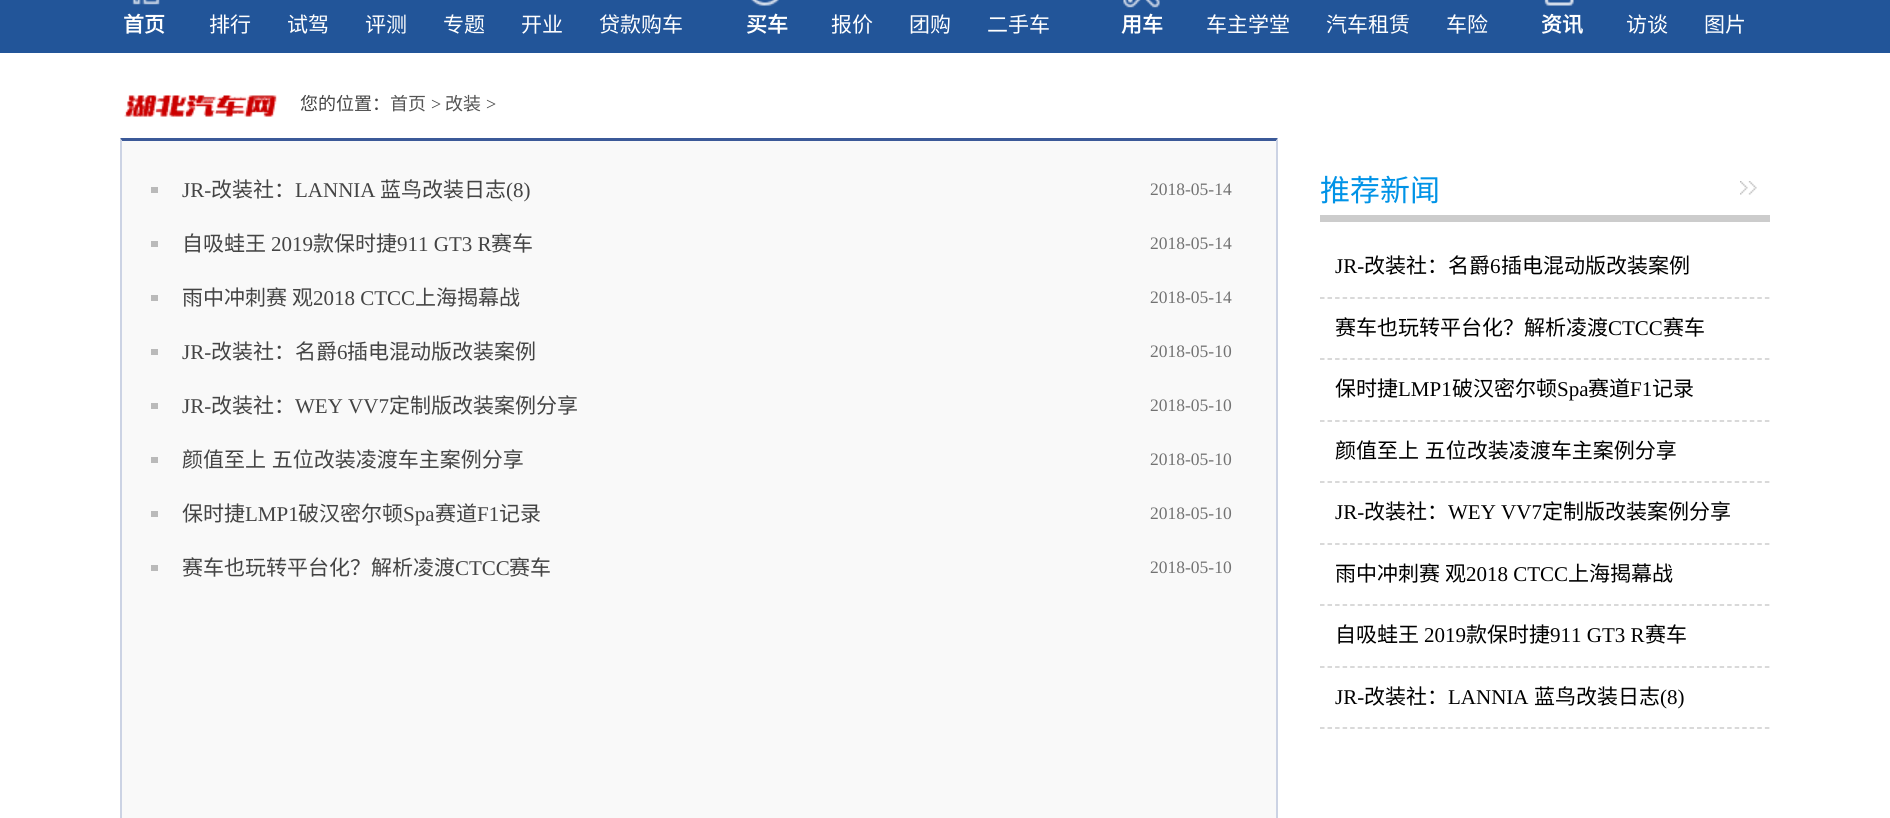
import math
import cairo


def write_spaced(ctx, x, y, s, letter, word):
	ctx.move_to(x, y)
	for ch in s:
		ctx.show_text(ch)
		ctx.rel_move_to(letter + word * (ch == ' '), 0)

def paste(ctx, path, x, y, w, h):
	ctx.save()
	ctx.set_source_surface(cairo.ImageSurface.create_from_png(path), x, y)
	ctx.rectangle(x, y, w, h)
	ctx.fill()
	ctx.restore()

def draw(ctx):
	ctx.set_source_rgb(1, 1, 1)
	ctx.paint()
	ctx.set_source_rgb(0.133, 0.333, 0.6)
	ctx.rectangle(0, 0, 1890, 53)
	ctx.fill()
	paste(ctx, 'media/1.png', 132, 0, 28, 5)
	ctx.select_font_face('Noto Sans CJK SC', cairo.FONT_SLANT_NORMAL, cairo.FONT_WEIGHT_BOLD)
	ctx.set_font_size(21)
	ctx.set_source_rgb(1, 1, 1)
	ctx.move_to(123, 32)
	ctx.show_text('首页')
	ctx.select_font_face('Noto Sans CJK SC')
	for x, y, s in [
		(209, 32, '排行'),
		(287, 32, '试驾'),
		(365, 32, '评测'),
		(443, 32, '专题'),
		(521, 32, '开业'),
		(599, 32, '贷款购车'),
	]:
		ctx.move_to(x, y)
		ctx.show_text(s)
	paste(ctx, 'media/2.png', 751, 0, 28, 6)
	ctx.select_font_face('Noto Sans CJK SC', cairo.FONT_SLANT_NORMAL, cairo.FONT_WEIGHT_BOLD)
	ctx.move_to(746, 32)
	ctx.show_text('买车')
	ctx.select_font_face('Noto Sans CJK SC')
	for x, y, s in [
		(831, 32, '报价'),
		(909, 32, '团购'),
		(987, 32, '二手车'),
	]:
		ctx.move_to(x, y)
		ctx.show_text(s)
	paste(ctx, 'media/3.png', 1123, 0, 37, 8)
	ctx.select_font_face('Noto Sans CJK SC', cairo.FONT_SLANT_NORMAL, cairo.FONT_WEIGHT_BOLD)
	ctx.move_to(1121, 32)
	ctx.show_text('用车')
	ctx.select_font_face('Noto Sans CJK SC')
	for x, y, s in [
		(1206, 32, '车主学堂'),
		(1326, 32, '汽车租赁'),
		(1446, 32, '车险'),
	]:
		ctx.move_to(x, y)
		ctx.show_text(s)
	paste(ctx, 'media/4.png', 1544, 0, 30, 6)
	ctx.select_font_face('Noto Sans CJK SC', cairo.FONT_SLANT_NORMAL, cairo.FONT_WEIGHT_BOLD)
	ctx.move_to(1541, 32)
	ctx.show_text('资讯')
	ctx.select_font_face('Noto Sans CJK SC')
	ctx.move_to(1626, 32)
	ctx.show_text('访谈')
	ctx.move_to(1704, 32)
	ctx.show_text('图片')
	paste(ctx, 'media/5.png', 124, 95, 153, 22)
	ctx.set_font_size(18)
	ctx.set_source_rgb(0.267, 0.267, 0.267)
	ctx.move_to(300, 110)
	ctx.show_text('您的位置：')
	ctx.set_source_rgb(0.329, 0.329, 0.329)
	ctx.move_to(390, 110)
	ctx.show_text('首页')
	ctx.select_font_face('Liberation Serif')
	ctx.set_source_rgb(0.267, 0.267, 0.267)
	ctx.move_to(431, 110)
	ctx.show_text('>')
	ctx.select_font_face('Noto Sans CJK SC')
	ctx.set_source_rgb(0.329, 0.329, 0.329)
	ctx.move_to(445, 110)
	ctx.show_text('改装')
	ctx.select_font_face('Liberation Serif')
	ctx.set_source_rgb(0.267, 0.267, 0.267)
	ctx.move_to(486, 110)
	ctx.show_text('>')
	ctx.set_source_rgb(0.976, 0.976, 0.976)
	ctx.rectangle(122, 141, 1154, 677)
	ctx.fill()
	ctx.set_source_rgb(0.231, 0.349, 0.596)
	ctx.new_path()
	ctx.move_to(120, 138)
	ctx.line_to(1278, 138)
	ctx.line_to(1276, 141)
	ctx.line_to(122, 141)
	ctx.close_path()
	ctx.fill()
	ctx.set_source_rgb(0.8, 0.827, 0.894)
	ctx.new_path()
	ctx.move_to(1278, 138)
	ctx.line_to(1278, 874)
	ctx.line_to(1276, 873)
	ctx.line_to(1276, 141)
	ctx.close_path()
	ctx.fill()
	ctx.new_path()
	ctx.move_to(120, 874)
	ctx.line_to(120, 138)
	ctx.line_to(122, 141)
	ctx.line_to(122, 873)
	ctx.close_path()
	ctx.fill()
	ctx.set_source_rgb(0.729, 0.729, 0.729)
	ctx.rectangle(151, 187, 7, 6)
	ctx.fill()
	ctx.set_font_size(21)
	ctx.set_source_rgb(0.267, 0.267, 0.267)
	ctx.move_to(182, 197)
	ctx.show_text('JR-')
	ctx.select_font_face('Noto Sans CJK SC')
	ctx.move_to(211, 197)
	ctx.show_text('改装社：')
	ctx.select_font_face('Liberation Serif')
	ctx.move_to(295, 197)
	ctx.show_text('LANNIA')
	ctx.select_font_face('Noto Sans CJK SC')
	ctx.move_to(380, 197)
	ctx.show_text('蓝鸟改装日志')
	ctx.select_font_face('Liberation Serif')
	ctx.move_to(506, 197)
	ctx.show_text('(8)')
	ctx.set_font_size(17.5)
	ctx.set_source_rgb(0.447, 0.447, 0.447)
	ctx.move_to(1150, 195)
	ctx.show_text('2018-05-14')
	ctx.set_source_rgb(0.729, 0.729, 0.729)
	ctx.rectangle(151, 241, 7, 6)
	ctx.fill()
	ctx.select_font_face('Noto Sans CJK SC')
	ctx.set_font_size(21)
	ctx.set_source_rgb(0.267, 0.267, 0.267)
	ctx.move_to(182, 251)
	ctx.show_text('自吸蛙王')
	ctx.select_font_face('Liberation Serif')
	ctx.move_to(271, 251)
	ctx.show_text('2019')
	ctx.select_font_face('Noto Sans CJK SC')
	ctx.move_to(313, 251)
	ctx.show_text('款保时捷')
	ctx.select_font_face('Liberation Serif')
	ctx.move_to(397, 251)
	ctx.show_text('911 GT3 R')
	ctx.select_font_face('Noto Sans CJK SC')
	ctx.move_to(491, 251)
	ctx.show_text('赛车')
	ctx.select_font_face('Liberation Serif')
	ctx.set_font_size(17.5)
	ctx.set_source_rgb(0.447, 0.447, 0.447)
	ctx.move_to(1150, 249)
	ctx.show_text('2018-05-14')
	ctx.set_source_rgb(0.729, 0.729, 0.729)
	ctx.rectangle(151, 295, 7, 6)
	ctx.fill()
	ctx.select_font_face('Noto Sans CJK SC')
	ctx.set_font_size(21)
	ctx.set_source_rgb(0.267, 0.267, 0.267)
	ctx.move_to(182, 305)
	ctx.show_text('雨中冲刺赛')
	ctx.move_to(292, 305)
	ctx.show_text('观')
	ctx.select_font_face('Liberation Serif')
	ctx.move_to(313, 305)
	ctx.show_text('2018 CTCC')
	ctx.select_font_face('Noto Sans CJK SC')
	ctx.move_to(415, 305)
	ctx.show_text('上海揭幕战')
	ctx.select_font_face('Liberation Serif')
	ctx.set_font_size(17.5)
	ctx.set_source_rgb(0.447, 0.447, 0.447)
	ctx.move_to(1150, 303)
	ctx.show_text('2018-05-14')
	ctx.set_source_rgb(0.729, 0.729, 0.729)
	ctx.rectangle(151, 349, 7, 6)
	ctx.fill()
	ctx.set_font_size(21)
	ctx.set_source_rgb(0.267, 0.267, 0.267)
	ctx.move_to(182, 359)
	ctx.show_text('JR-')
	ctx.select_font_face('Noto Sans CJK SC')
	ctx.move_to(211, 359)
	ctx.show_text('改装社：名爵')
	ctx.select_font_face('Liberation Serif')
	ctx.move_to(337, 359)
	ctx.show_text('6')
	ctx.select_font_face('Noto Sans CJK SC')
	ctx.move_to(347, 359)
	ctx.show_text('插电混动版改装案例')
	ctx.select_font_face('Liberation Serif')
	ctx.set_font_size(17.5)
	ctx.set_source_rgb(0.447, 0.447, 0.447)
	ctx.move_to(1150, 357)
	ctx.show_text('2018-05-10')
	ctx.set_source_rgb(0.729, 0.729, 0.729)
	ctx.rectangle(151, 403, 7, 6)
	ctx.fill()
	ctx.set_font_size(21)
	ctx.set_source_rgb(0.267, 0.267, 0.267)
	ctx.move_to(182, 413)
	ctx.show_text('JR-')
	ctx.select_font_face('Noto Sans CJK SC')
	ctx.move_to(211, 413)
	ctx.show_text('改装社：')
	ctx.select_font_face('Liberation Serif')
	ctx.move_to(295, 413)
	ctx.show_text('WEY VV7')
	ctx.select_font_face('Noto Sans CJK SC')
	ctx.move_to(389, 413)
	ctx.show_text('定制版改装案例分享')
	ctx.select_font_face('Liberation Serif')
	ctx.set_font_size(17.5)
	ctx.set_source_rgb(0.447, 0.447, 0.447)
	ctx.move_to(1150, 411)
	ctx.show_text('2018-05-10')
	ctx.set_source_rgb(0.729, 0.729, 0.729)
	ctx.rectangle(151, 457, 7, 6)
	ctx.fill()
	ctx.select_font_face('Noto Sans CJK SC')
	ctx.set_font_size(21)
	ctx.set_source_rgb(0.267, 0.267, 0.267)
	write_spaced(ctx, 182, 467, '颜值至上 五位改装凌渡车主案例分享', 0, 1)
	ctx.select_font_face('Liberation Serif')
	ctx.set_font_size(17.5)
	ctx.set_source_rgb(0.447, 0.447, 0.447)
	ctx.move_to(1150, 465)
	ctx.show_text('2018-05-10')
	ctx.set_source_rgb(0.729, 0.729, 0.729)
	ctx.rectangle(151, 511, 7, 6)
	ctx.fill()
	ctx.select_font_face('Noto Sans CJK SC')
	ctx.set_font_size(21)
	ctx.set_source_rgb(0.267, 0.267, 0.267)
	ctx.move_to(182, 521)
	ctx.show_text('保时捷')
	ctx.select_font_face('Liberation Serif')
	ctx.move_to(245, 521)
	ctx.show_text('LMP1')
	ctx.select_font_face('Noto Sans CJK SC')
	ctx.move_to(298, 521)
	ctx.show_text('破汉密尔顿')
	ctx.select_font_face('Liberation Serif')
	ctx.move_to(403, 521)
	ctx.show_text('Spa')
	ctx.select_font_face('Noto Sans CJK SC')
	ctx.move_to(435, 521)
	ctx.show_text('赛道')
	ctx.select_font_face('Liberation Serif')
	ctx.move_to(477, 521)
	ctx.show_text('F1')
	ctx.select_font_face('Noto Sans CJK SC')
	ctx.move_to(499, 521)
	ctx.show_text('记录')
	ctx.select_font_face('Liberation Serif')
	ctx.set_font_size(17.5)
	ctx.set_source_rgb(0.447, 0.447, 0.447)
	ctx.move_to(1150, 519)
	ctx.show_text('2018-05-10')
	ctx.set_source_rgb(0.729, 0.729, 0.729)
	ctx.rectangle(151, 565, 7, 6)
	ctx.fill()
	ctx.select_font_face('Noto Sans CJK SC')
	ctx.set_font_size(21)
	ctx.set_source_rgb(0.267, 0.267, 0.267)
	ctx.move_to(182, 575)
	ctx.show_text('赛车也玩转平台化？解析凌渡')
	ctx.select_font_face('Liberation Serif')
	ctx.move_to(455, 575)
	ctx.show_text('CTCC')
	ctx.select_font_face('Noto Sans CJK SC')
	ctx.move_to(509, 575)
	ctx.show_text('赛车')
	ctx.select_font_face('Liberation Serif')
	ctx.set_font_size(17.5)
	ctx.set_source_rgb(0.447, 0.447, 0.447)
	ctx.move_to(1150, 573)
	ctx.show_text('2018-05-10')
	paste(ctx, 'media/6.png', 1740, 181, 17, 14)
	ctx.set_source_rgb(0.8, 0.8, 0.8)
	ctx.rectangle(1320, 215, 450, 7)
	ctx.fill()
	ctx.select_font_face('Noto Sans CJK SC')
	ctx.set_font_size(30)
	ctx.set_source_rgb(0, 0.576, 0.906)
	ctx.move_to(1320, 201)
	ctx.show_text('推荐新闻')
	ctx.new_path()
	ctx.move_to(1320, 298)
	ctx.line_to(1770, 298)
	ctx.set_source_rgb(0.8, 0.8, 0.8)
	ctx.set_line_width(1.5)
	ctx.set_dash([4.5, 3.04])
	ctx.stroke()
	ctx.select_font_face('Liberation Serif')
	ctx.set_font_size(21)
	ctx.set_source_rgb(0, 0, 0)
	ctx.move_to(1335, 273)
	ctx.show_text('JR-')
	ctx.select_font_face('Noto Sans CJK SC')
	ctx.move_to(1364, 273)
	ctx.show_text('改装社：名爵')
	ctx.select_font_face('Liberation Serif')
	ctx.move_to(1490, 273)
	ctx.show_text('6')
	ctx.select_font_face('Noto Sans CJK SC')
	ctx.move_to(1501, 273)
	ctx.show_text('插电混动版改装案例')
	ctx.new_path()
	ctx.move_to(1320, 359)
	ctx.line_to(1770, 359)
	ctx.set_source_rgb(0.8, 0.8, 0.8)
	ctx.stroke()
	ctx.set_source_rgb(0, 0, 0)
	ctx.move_to(1335, 335)
	ctx.show_text('赛车也玩转平台化？解析凌渡')
	ctx.select_font_face('Liberation Serif')
	ctx.move_to(1608, 335)
	ctx.show_text('CTCC')
	ctx.select_font_face('Noto Sans CJK SC')
	ctx.move_to(1663, 335)
	ctx.show_text('赛车')
	ctx.new_path()
	ctx.move_to(1320, 421)
	ctx.line_to(1770, 421)
	ctx.set_source_rgb(0.8, 0.8, 0.8)
	ctx.stroke()
	ctx.set_source_rgb(0, 0, 0)
	ctx.move_to(1335, 396)
	ctx.show_text('保时捷')
	ctx.select_font_face('Liberation Serif')
	ctx.move_to(1398, 396)
	ctx.show_text('LMP1')
	ctx.select_font_face('Noto Sans CJK SC')
	ctx.move_to(1452, 396)
	ctx.show_text('破汉密尔顿')
	ctx.select_font_face('Liberation Serif')
	ctx.move_to(1557, 396)
	ctx.show_text('Spa')
	ctx.select_font_face('Noto Sans CJK SC')
	ctx.move_to(1588, 396)
	ctx.show_text('赛道')
	ctx.select_font_face('Liberation Serif')
	ctx.move_to(1630, 396)
	ctx.show_text('F1')
	ctx.select_font_face('Noto Sans CJK SC')
	ctx.move_to(1652, 396)
	ctx.show_text('记录')
	ctx.new_path()
	ctx.move_to(1320, 482)
	ctx.line_to(1770, 482)
	ctx.set_source_rgb(0.8, 0.8, 0.8)
	ctx.stroke()
	ctx.set_source_rgb(0, 0, 0)
	write_spaced(ctx, 1335, 458, '颜值至上 五位改装凌渡车主案例分享', 0, 1)
	ctx.new_path()
	ctx.move_to(1320, 544)
	ctx.line_to(1770, 544)
	ctx.set_source_rgb(0.8, 0.8, 0.8)
	ctx.stroke()
	ctx.select_font_face('Liberation Serif')
	ctx.set_source_rgb(0, 0, 0)
	ctx.move_to(1335, 519)
	ctx.show_text('JR-')
	ctx.select_font_face('Noto Sans CJK SC')
	ctx.move_to(1364, 519)
	ctx.show_text('改装社：')
	ctx.select_font_face('Liberation Serif')
	ctx.move_to(1448, 519)
	ctx.show_text('WEY VV7')
	ctx.select_font_face('Noto Sans CJK SC')
	ctx.move_to(1542, 519)
	ctx.show_text('定制版改装案例分享')
	ctx.new_path()
	ctx.move_to(1320, 605)
	ctx.line_to(1770, 605)
	ctx.set_source_rgb(0.8, 0.8, 0.8)
	ctx.stroke()
	ctx.set_source_rgb(0, 0, 0)
	ctx.move_to(1335, 581)
	ctx.show_text('雨中冲刺赛')
	ctx.move_to(1445, 581)
	ctx.show_text('观')
	ctx.select_font_face('Liberation Serif')
	ctx.move_to(1466, 581)
	ctx.show_text('2018 CTCC')
	ctx.select_font_face('Noto Sans CJK SC')
	ctx.move_to(1568, 581)
	ctx.show_text('上海揭幕战')
	ctx.new_path()
	ctx.move_to(1320, 667)
	ctx.line_to(1770, 667)
	ctx.set_source_rgb(0.8, 0.8, 0.8)
	ctx.stroke()
	ctx.set_source_rgb(0, 0, 0)
	ctx.move_to(1335, 642)
	ctx.show_text('自吸蛙王')
	ctx.select_font_face('Liberation Serif')
	ctx.move_to(1424, 642)
	ctx.show_text('2019')
	ctx.select_font_face('Noto Sans CJK SC')
	ctx.move_to(1466, 642)
	ctx.show_text('款保时捷')
	ctx.select_font_face('Liberation Serif')
	ctx.move_to(1550, 642)
	ctx.show_text('911 GT3 R')
	ctx.select_font_face('Noto Sans CJK SC')
	ctx.move_to(1645, 642)
	ctx.show_text('赛车')
	ctx.new_path()
	ctx.move_to(1320, 728)
	ctx.line_to(1770, 728)
	ctx.set_source_rgb(0.8, 0.8, 0.8)
	ctx.stroke()
	ctx.select_font_face('Liberation Serif')
	ctx.set_source_rgb(0, 0, 0)
	ctx.move_to(1335, 704)
	ctx.show_text('JR-')
	ctx.select_font_face('Noto Sans CJK SC')
	ctx.move_to(1364, 704)
	ctx.show_text('改装社：')
	ctx.select_font_face('Liberation Serif')
	ctx.move_to(1448, 704)
	ctx.show_text('LANNIA')
	ctx.select_font_face('Noto Sans CJK SC')
	ctx.move_to(1534, 704)
	ctx.show_text('蓝鸟改装日志')
	ctx.select_font_face('Liberation Serif')
	ctx.move_to(1660, 704)
	ctx.show_text('(8)')


surface = cairo.ImageSurface(cairo.FORMAT_RGB24, 1890, 818)
ctx = cairo.Context(surface)
options = cairo.FontOptions()
options.set_hint_metrics(cairo.HINT_METRICS_OFF)
options.set_hint_style(cairo.HINT_STYLE_NONE)
ctx.set_font_options(options)
ctx.set_miter_limit(4)
draw(ctx)
surface.write_to_png('image.png')
